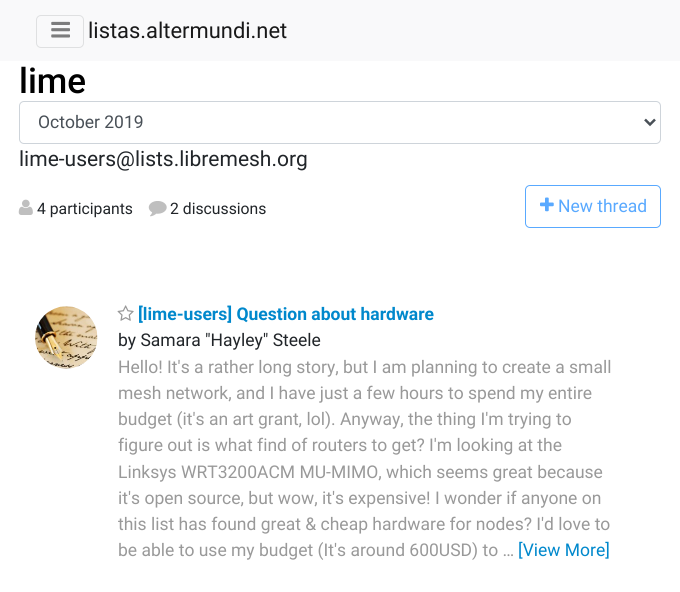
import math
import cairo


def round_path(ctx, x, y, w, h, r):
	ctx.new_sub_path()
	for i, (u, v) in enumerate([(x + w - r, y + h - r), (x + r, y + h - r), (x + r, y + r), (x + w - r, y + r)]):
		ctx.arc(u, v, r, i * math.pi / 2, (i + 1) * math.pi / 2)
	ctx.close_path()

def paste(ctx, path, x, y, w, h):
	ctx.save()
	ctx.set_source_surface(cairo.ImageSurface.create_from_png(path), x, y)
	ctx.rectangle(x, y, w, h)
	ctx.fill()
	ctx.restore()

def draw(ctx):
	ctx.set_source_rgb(1, 1, 1)
	ctx.paint()
	ctx.set_source_rgb(0.973, 0.976, 0.98)
	ctx.rectangle(0, 0, 680, 61)
	ctx.fill()
	round_path(ctx, 36.5, 15.5, 47, 32, 4.5)
	ctx.set_source_rgb(0.875, 0.878, 0.882)
	ctx.set_line_width(1)
	ctx.stroke()
	paste(ctx, 'media/1.png', 51, 21, 19, 17)
	ctx.select_font_face('Roboto')
	ctx.set_font_size(21.9)
	ctx.set_source_rgb(0.098, 0.098, 0.098)
	ctx.move_to(88, 38)
	ctx.show_text('listas.altermundi.net')
	ctx.select_font_face('Roboto Medium')
	ctx.set_font_size(35)
	ctx.set_source_rgb(0, 0, 0)
	ctx.move_to(19, 93)
	ctx.show_text('lime')
	round_path(ctx, 19.5, 101.5, 641, 42, 4.5)
	ctx.set_source_rgb(0.808, 0.831, 0.855)
	ctx.stroke()
	ctx.new_path()
	ctx.move_to(645, 119.5)
	ctx.line_to(650, 124.5)
	ctx.line_to(655, 119.5)
	ctx.set_source_rgb(0.286, 0.314, 0.341)
	ctx.set_line_width(2.5)
	ctx.stroke()
	ctx.select_font_face('Roboto')
	ctx.set_font_size(17.5)
	ctx.move_to(38, 128)
	ctx.show_text('October 2019')
	ctx.set_font_size(21)
	ctx.set_source_rgb(0.129, 0.145, 0.161)
	ctx.move_to(19, 166)
	ctx.show_text('lime-users@lists.libremesh.org')
	paste(ctx, 'media/2.png', 18, 199, 15, 16)
	ctx.set_font_size(15.75)
	ctx.move_to(37, 214)
	ctx.show_text('4 participants')
	paste(ctx, 'media/3.png', 148, 201, 19, 16)
	ctx.move_to(170, 214)
	ctx.show_text('2 discussions')
	round_path(ctx, 525.5, 185.5, 135, 42, 4.5)
	ctx.set_source_rgb(0.349, 0.663, 1)
	ctx.set_line_width(1)
	ctx.stroke()
	paste(ctx, 'media/4.png', 540, 197, 14, 15)
	ctx.set_font_size(17.5)
	ctx.move_to(558, 212)
	ctx.show_text('New thread')
	paste(ctx, 'media/5.png', 35, 306, 63, 63)
	paste(ctx, 'media/6.png', 117, 305, 17, 16)
	ctx.select_font_face('Roboto', cairo.FONT_SLANT_NORMAL, cairo.FONT_WEIGHT_BOLD)
	ctx.set_source_rgb(0, 0.533, 0.8)
	ctx.move_to(138, 320)
	ctx.show_text('[lime-users] Question about hardware')
	ctx.select_font_face('Roboto')
	ctx.set_source_rgb(0.129, 0.145, 0.161)
	ctx.move_to(118, 346)
	ctx.show_text('by Samara "Hayley" Steele')
	ctx.set_source_rgb(0.6, 0.6, 0.6)
	for x, y, s in [
		(118, 373, 'Hello! It\'s a rather long story, but I am planning to create a small'),
		(118, 399, 'mesh network, and I have just a few hours to spend my entire'),
		(118, 425, 'budget (it\'s an art grant, lol). Anyway, the thing I\'m trying to'),
		(118, 451, 'figure out is what find of routers to get? I\'m looking at the'),
		(118, 478, 'Linksys WRT3200ACM MU-MIMO, which seems great because'),
		(118, 504, 'it\'s open source, but wow, it\'s expensive! I wonder if anyone on'),
		(118, 530, 'this list has found great & cheap hardware for nodes? I\'d love to'),
		(118, 556, 'be able to use my budget (It\'s around 600USD) to …'),
	]:
		ctx.move_to(x, y)
		ctx.show_text(s)
	ctx.set_source_rgb(0, 0.533, 0.8)
	ctx.move_to(518, 556)
	ctx.show_text('[View More]')


surface = cairo.ImageSurface(cairo.FORMAT_RGB24, 680, 592)
ctx = cairo.Context(surface)
options = cairo.FontOptions()
options.set_hint_metrics(cairo.HINT_METRICS_OFF)
options.set_hint_style(cairo.HINT_STYLE_NONE)
ctx.set_font_options(options)
ctx.set_miter_limit(4)
draw(ctx)
surface.write_to_png('image.png')
